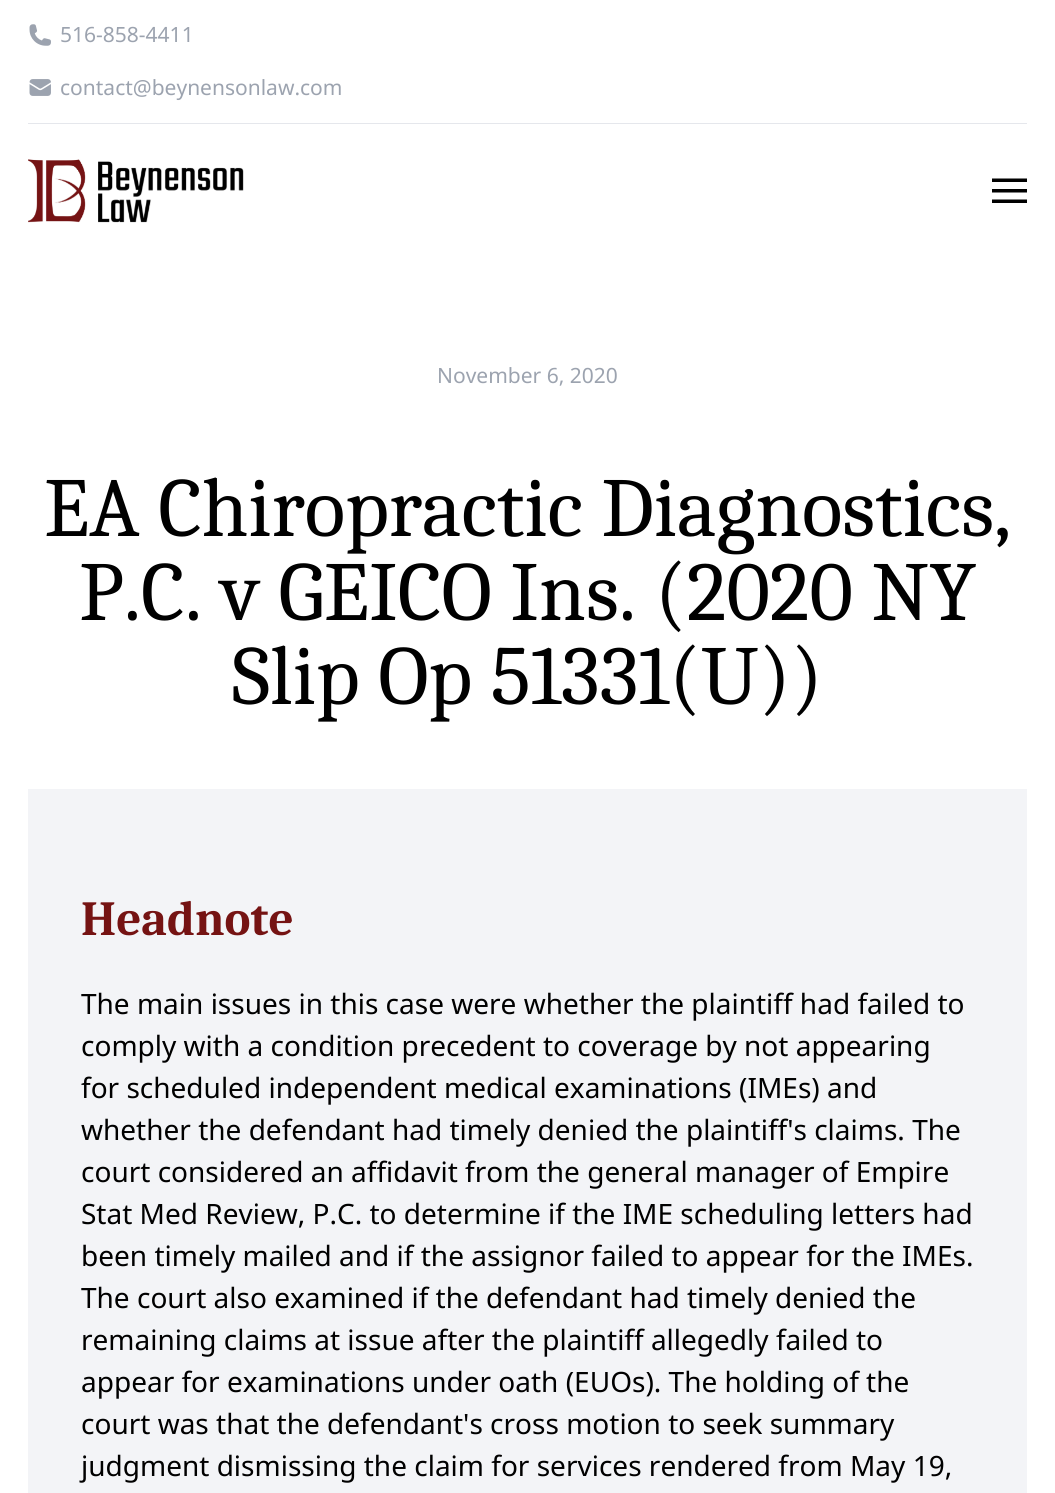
import math
import cairo


def paste(ctx, path, x, y, w, h):
	ctx.save()
	ctx.set_source_surface(cairo.ImageSurface.create_from_png(path), x, y)
	ctx.rectangle(x, y, w, h)
	ctx.fill()
	ctx.restore()

def draw(ctx):
	ctx.set_source_rgb(1, 1, 1)
	ctx.paint()
	ctx.set_source_rgb(0.898, 0.906, 0.922)
	ctx.rectangle(28, 123, 999, 1)
	ctx.fill()
	paste(ctx, 'media/1.png', 29, 24, 22, 22)
	ctx.select_font_face('Noto Sans')
	ctx.set_font_size(21)
	ctx.set_source_rgb(0.612, 0.639, 0.686)
	ctx.move_to(60, 42)
	ctx.show_text('516-858-4411')
	paste(ctx, 'media/2.png', 29, 79, 22, 17)
	ctx.move_to(60, 95)
	ctx.show_text('contact@beynensonlaw.com')
	paste(ctx, 'media/3.png', 28, 159, 216, 64)
	ctx.set_source_rgb(0, 0, 0)
	ctx.new_path()
	ctx.move_to(992, 178.5)
	ctx.line_to(1027, 178.5)
	ctx.line_to(1027, 182)
	ctx.line_to(992, 182)
	ctx.close_path()
	ctx.move_to(992, 189)
	ctx.line_to(1027, 189)
	ctx.line_to(1027, 192.5)
	ctx.line_to(992, 192.5)
	ctx.close_path()
	ctx.move_to(992, 199.5)
	ctx.line_to(1027, 199.5)
	ctx.line_to(1027, 203)
	ctx.line_to(992, 203)
	ctx.close_path()
	ctx.fill()
	ctx.set_source_rgb(0.612, 0.639, 0.686)
	ctx.move_to(437, 383)
	ctx.show_text('November 6, 2020')
	ctx.select_font_face('Caladea')
	ctx.set_font_size(84)
	ctx.set_source_rgb(0, 0, 0)
	for x, y, s in [
		(44, 536, 'EA Chiropractic Diagnostics,'),
		(79, 620, 'P.C. v GEICO Ins. (2020 NY'),
		(232, 704, 'Slip Op 51331(U))'),
	]:
		ctx.move_to(x, y)
		ctx.show_text(s)
	ctx.set_source_rgb(0.953, 0.957, 0.965)
	ctx.rectangle(28, 789, 999, 704)
	ctx.fill()
	ctx.select_font_face('Caladea', cairo.FONT_SLANT_NORMAL, cairo.FONT_WEIGHT_BOLD)
	ctx.set_font_size(49)
	ctx.set_source_rgb(0.459, 0.075, 0.078)
	ctx.move_to(81, 935)
	ctx.show_text('Headnote')
	ctx.select_font_face('Noto Sans')
	ctx.set_font_size(28)
	ctx.set_source_rgb(0, 0, 0)
	for x, y, s in [
		(81, 1014, 'The main issues in this case were whether the plaintiff had failed to'),
		(81, 1056, 'comply with a condition precedent to coverage by not appearing'),
		(81, 1098, 'for scheduled independent medical examinations (IMEs) and'),
		(81, 1140, 'whether the defendant had timely denied the plaintiff\'s claims. The'),
		(81, 1182, 'court considered an affidavit from the general manager of Empire'),
		(81, 1224, 'Stat Med Review, P.C. to determine if the IME scheduling letters had'),
		(81, 1266, 'been timely mailed and if the assignor failed to appear for the IMEs.'),
		(81, 1308, 'The court also examined if the defendant had timely denied the'),
		(81, 1350, 'remaining claims at issue after the plaintiff allegedly failed to'),
		(81, 1392, 'appear for examinations under oath (EUOs). The holding of the'),
		(81, 1434, 'court was that the defendant\'s cross motion to seek summary'),
		(81, 1476, 'judgment dismissing the claim for services rendered from May 19,'),
	]:
		ctx.move_to(x, y)
		ctx.show_text(s)


surface = cairo.ImageSurface(cairo.FORMAT_RGB24, 1055, 1493)
ctx = cairo.Context(surface)
options = cairo.FontOptions()
options.set_hint_metrics(cairo.HINT_METRICS_OFF)
options.set_hint_style(cairo.HINT_STYLE_NONE)
ctx.set_font_options(options)
ctx.set_miter_limit(4)
draw(ctx)
surface.write_to_png('image.png')
